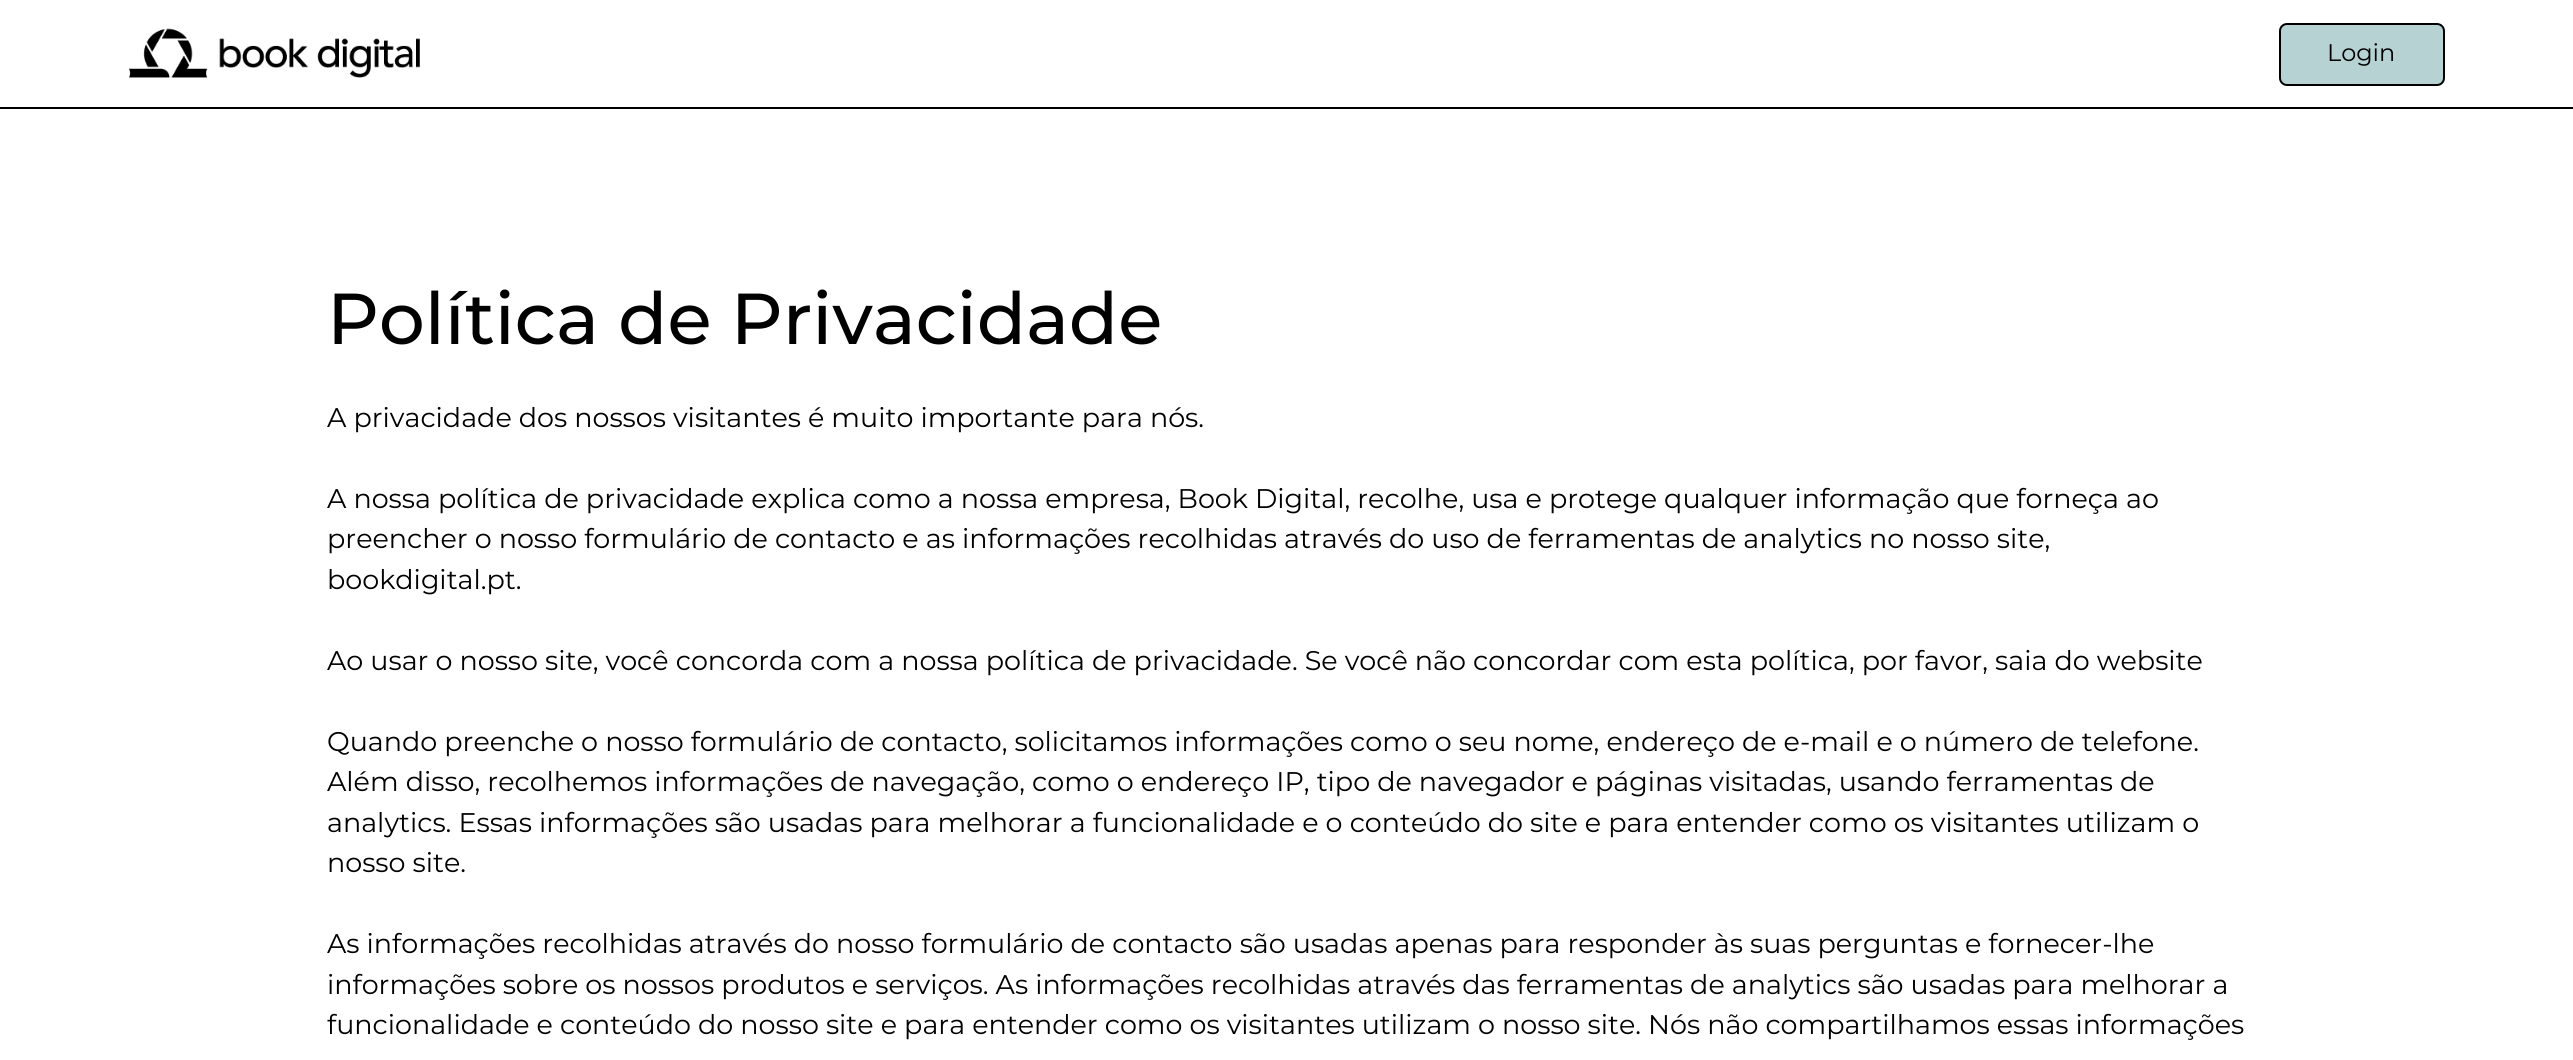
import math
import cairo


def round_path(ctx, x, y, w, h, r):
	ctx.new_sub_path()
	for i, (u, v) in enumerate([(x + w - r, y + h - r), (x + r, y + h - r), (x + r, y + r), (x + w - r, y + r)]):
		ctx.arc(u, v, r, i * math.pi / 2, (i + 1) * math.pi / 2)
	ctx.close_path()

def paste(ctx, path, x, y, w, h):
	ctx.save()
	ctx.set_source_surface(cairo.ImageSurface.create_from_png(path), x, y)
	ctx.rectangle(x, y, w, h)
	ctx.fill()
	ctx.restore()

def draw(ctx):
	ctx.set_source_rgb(1, 1, 1)
	ctx.paint()
	ctx.set_source_rgb(0, 0, 0)
	ctx.rectangle(0, 107, 2573, 2)
	ctx.fill()
	paste(ctx, 'media/1.png', 129, 28, 291, 50)
	ctx.set_source_rgb(0.714, 0.824, 0.827)
	round_path(ctx, 2280, 24, 164, 61, 7)
	ctx.fill_preserve()
	ctx.set_source_rgb(0, 0, 0)
	ctx.stroke()
	ctx.select_font_face('Montserrat')
	ctx.set_font_size(24)
	ctx.move_to(2327, 61)
	ctx.show_text('Login')
	ctx.select_font_face('Montserrat Medium')
	ctx.set_font_size(72)
	ctx.move_to(327, 344)
	ctx.show_text('Política de Privacidade')
	ctx.select_font_face('Montserrat')
	ctx.set_font_size(27)
	for x, y, s in [
		(327, 427, 'A privacidade dos nossos visitantes é muito importante para nós.'),
		(327, 508, 'A nossa política de privacidade explica como a nossa empresa, Book Digital, recolhe, usa e protege qualquer informação que forneça ao'),
		(327, 548, 'preencher o nosso formulário de contacto e as informações recolhidas através do uso de ferramentas de analytics no nosso site,'),
		(327, 589, 'bookdigital.pt.'),
		(327, 670, 'Ao usar o nosso site, você concorda com a nossa política de privacidade. Se você não concordar com esta política, por favor, saia do website'),
		(327, 751, 'Quando preenche o nosso formulário de contacto, solicitamos informações como o seu nome, endereço de e-mail e o número de telefone.'),
		(327, 791, 'Além disso, recolhemos informações de navegação, como o endereço IP, tipo de navegador e páginas visitadas, usando ferramentas de'),
		(327, 832, 'analytics. Essas informações são usadas para melhorar a funcionalidade e o conteúdo do site e para entender como os visitantes utilizam o'),
		(327, 872, 'nosso site.'),
		(327, 953, 'As informações recolhidas através do nosso formulário de contacto são usadas apenas para responder às suas perguntas e fornecer-lhe'),
		(327, 994, 'informações sobre os nossos produtos e serviços. As informações recolhidas através das ferramentas de analytics são usadas para melhorar a'),
		(327, 1034, 'funcionalidade e conteúdo do nosso site e para entender como os visitantes utilizam o nosso site. Nós não compartilhamos essas informações'),
	]:
		ctx.move_to(x, y)
		ctx.show_text(s)


surface = cairo.ImageSurface(cairo.FORMAT_RGB24, 2573, 1060)
ctx = cairo.Context(surface)
options = cairo.FontOptions()
options.set_hint_metrics(cairo.HINT_METRICS_OFF)
options.set_hint_style(cairo.HINT_STYLE_NONE)
ctx.set_font_options(options)
ctx.set_miter_limit(4)
draw(ctx)
surface.write_to_png('image.png')
